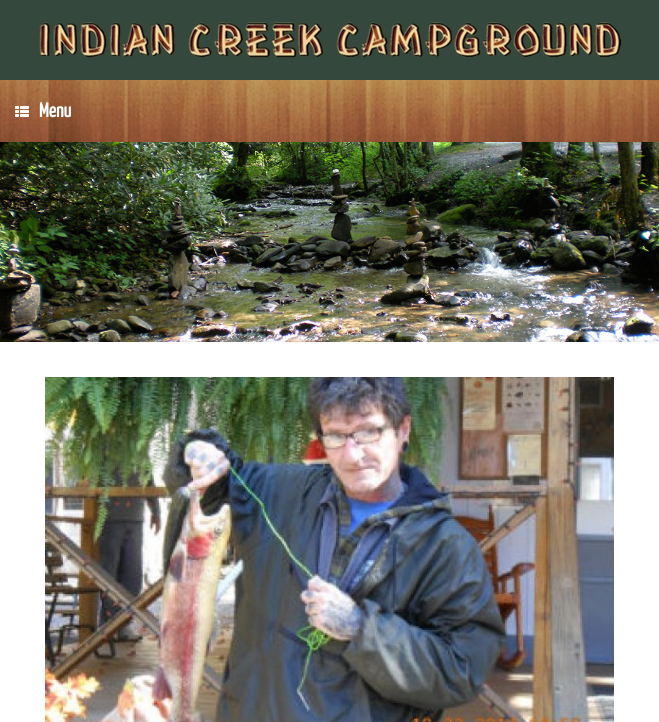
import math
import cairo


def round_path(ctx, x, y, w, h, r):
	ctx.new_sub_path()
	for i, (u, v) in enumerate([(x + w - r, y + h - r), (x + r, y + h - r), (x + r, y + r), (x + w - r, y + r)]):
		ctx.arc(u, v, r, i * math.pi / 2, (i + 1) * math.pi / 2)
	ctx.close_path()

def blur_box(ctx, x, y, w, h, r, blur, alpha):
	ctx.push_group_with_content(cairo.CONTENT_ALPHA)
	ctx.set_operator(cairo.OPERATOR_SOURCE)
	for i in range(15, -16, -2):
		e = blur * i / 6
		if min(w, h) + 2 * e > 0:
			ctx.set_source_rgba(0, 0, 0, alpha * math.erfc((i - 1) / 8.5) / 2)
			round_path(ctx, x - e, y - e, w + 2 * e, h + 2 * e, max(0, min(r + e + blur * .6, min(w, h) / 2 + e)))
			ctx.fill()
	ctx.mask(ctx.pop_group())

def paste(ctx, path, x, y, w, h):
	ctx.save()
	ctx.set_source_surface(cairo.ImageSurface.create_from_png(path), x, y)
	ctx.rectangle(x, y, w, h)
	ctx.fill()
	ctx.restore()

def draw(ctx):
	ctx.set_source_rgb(0.204, 0.282, 0.239)
	ctx.paint()
	paste(ctx, 'media/1.png', 39, 22, 582, 36)
	paste(ctx, 'media/2.png', 0, 80, 659, 62)
	paste(ctx, 'media/3.png', 15, 106, 14, 11)
	ctx.select_font_face('Yanone Kaffeesatz', cairo.FONT_SLANT_NORMAL, cairo.FONT_WEIGHT_BOLD)
	ctx.set_font_size(20)
	ctx.set_source_rgb(1, 1, 1)
	ctx.move_to(39, 117)
	ctx.show_text('Menu')
	paste(ctx, 'media/4.png', 0, 142, 659, 200)
	ctx.set_source_rgb(0, 0, 0)
	blur_box(ctx, -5, 342, 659, 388, 0, 2.5, 0.1)
	ctx.set_source_rgb(1, 1, 1)
	ctx.rectangle(0, 342, 659, 380)
	ctx.fill()
	paste(ctx, 'media/5.png', 45, 377, 569, 345)


surface = cairo.ImageSurface(cairo.FORMAT_RGB24, 659, 722)
ctx = cairo.Context(surface)
options = cairo.FontOptions()
options.set_hint_metrics(cairo.HINT_METRICS_OFF)
options.set_hint_style(cairo.HINT_STYLE_NONE)
ctx.set_font_options(options)
ctx.set_miter_limit(4)
draw(ctx)
surface.write_to_png('image.png')
